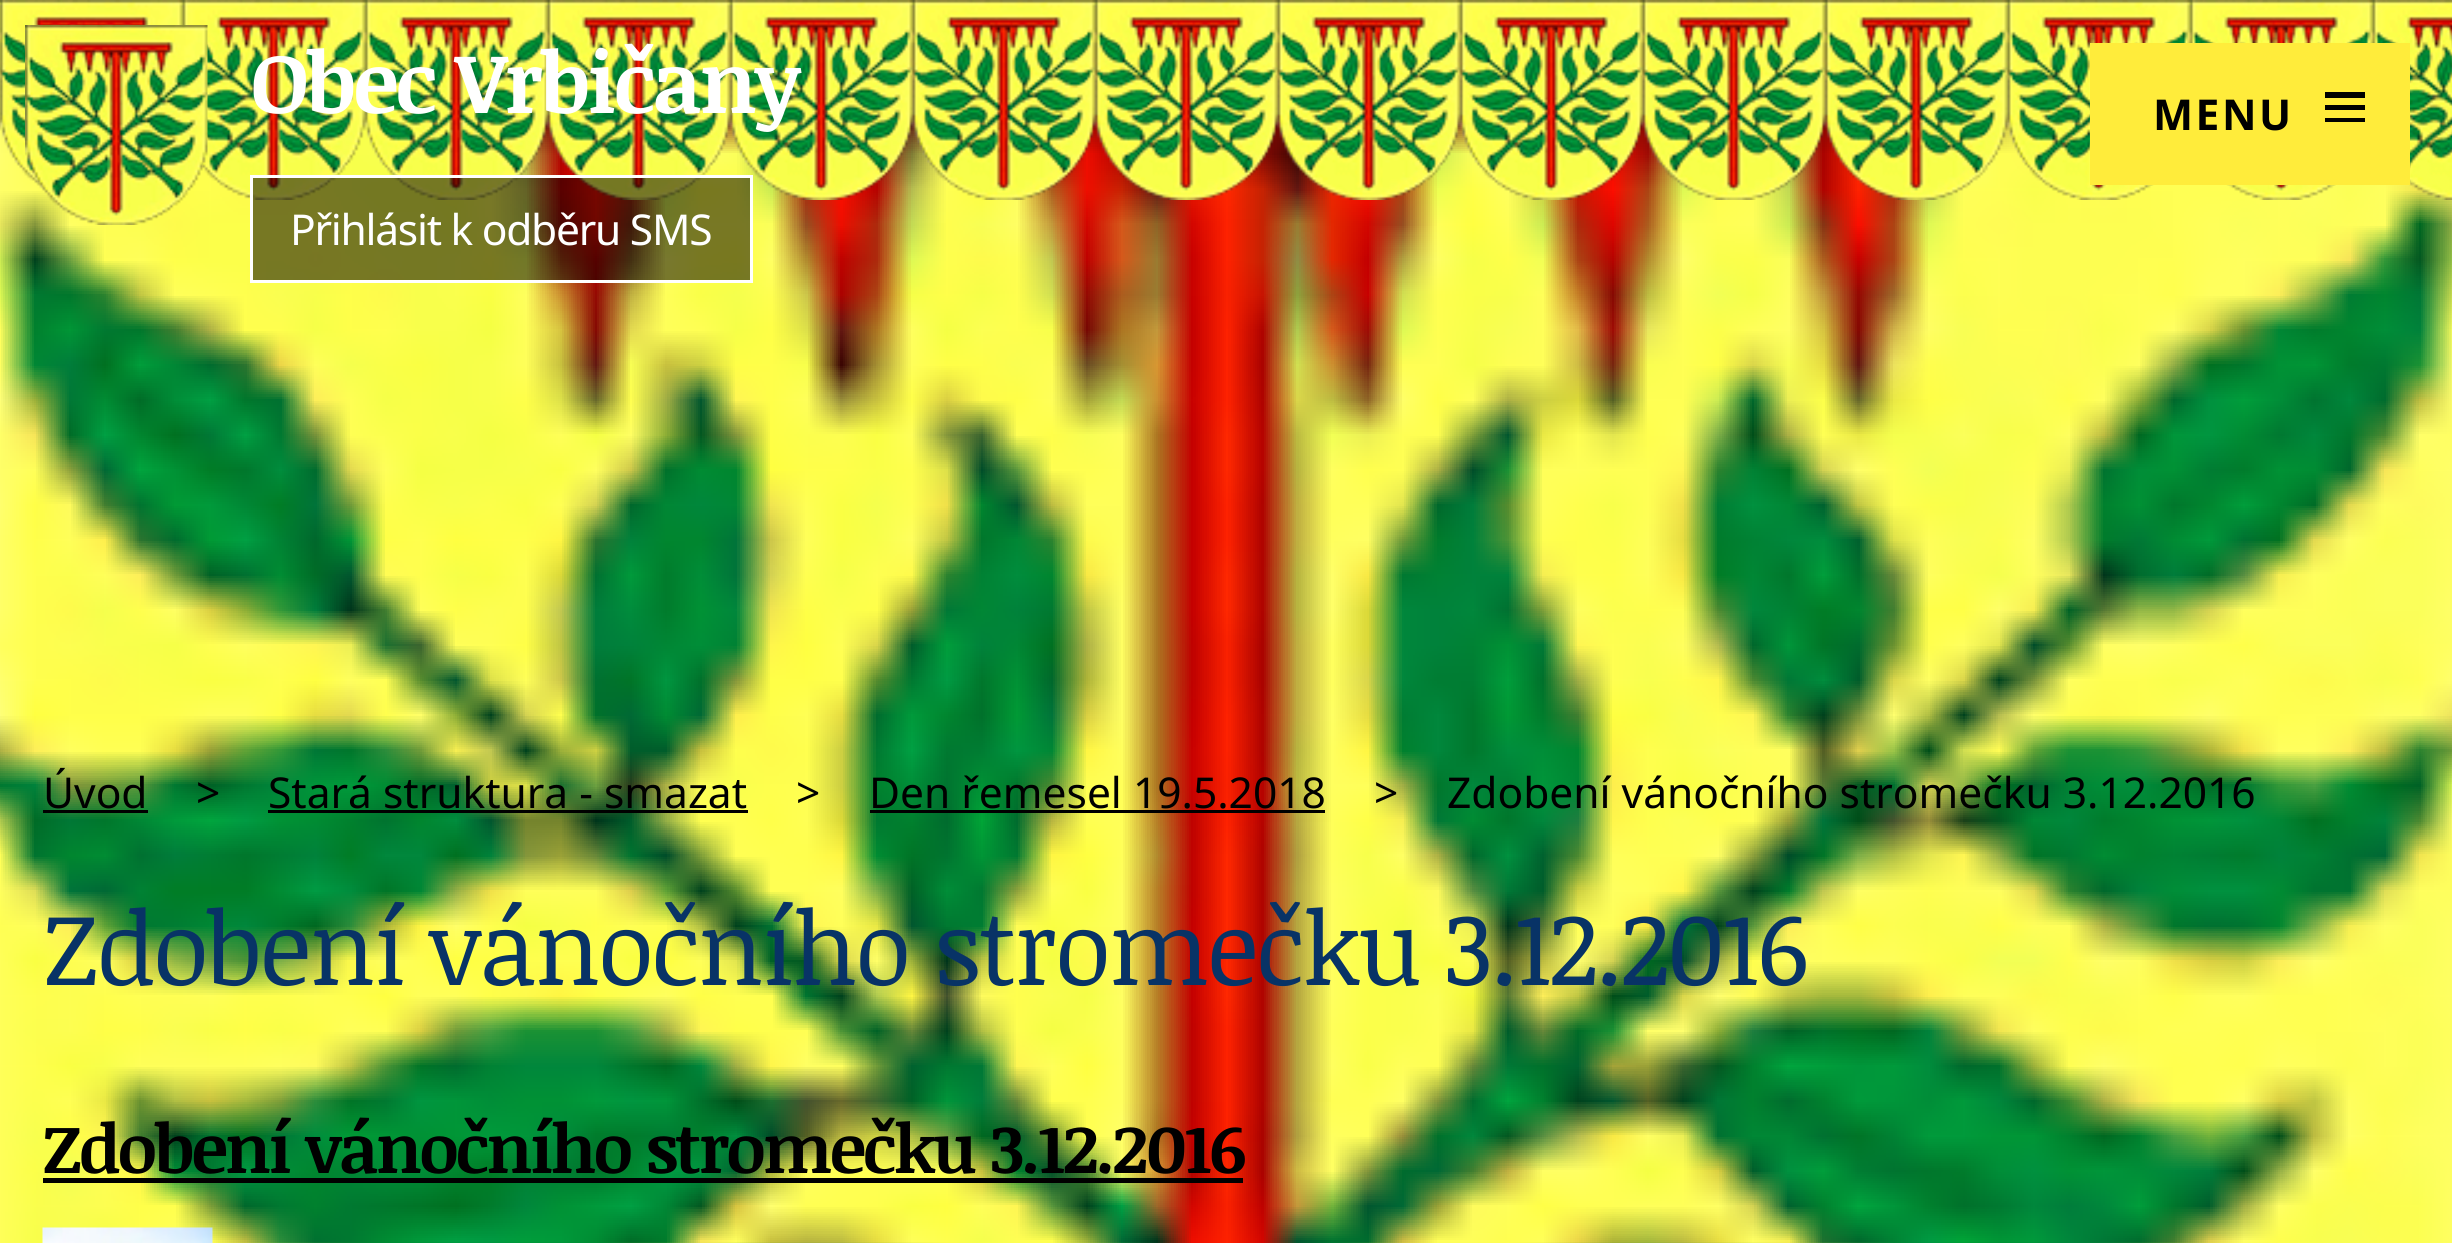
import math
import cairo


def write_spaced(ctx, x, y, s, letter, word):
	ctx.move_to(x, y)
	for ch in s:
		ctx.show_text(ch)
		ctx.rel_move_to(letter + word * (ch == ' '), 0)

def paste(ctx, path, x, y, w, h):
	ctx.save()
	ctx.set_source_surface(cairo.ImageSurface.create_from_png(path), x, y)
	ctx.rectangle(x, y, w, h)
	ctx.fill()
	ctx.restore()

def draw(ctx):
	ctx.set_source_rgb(1, 1, 1)
	ctx.paint()
	paste(ctx, 'media/1.png', 0, 0, 2452, 1243)
	paste(ctx, 'media/2.png', 0, 0, 2452, 200)
	paste(ctx, 'media/3.png', 25, 25, 183, 200)
	ctx.select_font_face('Noticia Text', cairo.FONT_SLANT_NORMAL, cairo.FONT_WEIGHT_BOLD)
	ctx.set_font_size(85)
	ctx.set_source_rgb(1, 1, 1)
	write_spaced(ctx, 250, 113, 'Obec Vrbičany', -2.5, 0)
	ctx.set_source_rgba(0, 0, 0, 0.53)
	ctx.rectangle(251.5, 176.5, 500, 105)
	ctx.fill_preserve()
	ctx.set_source_rgb(1, 1, 1)
	ctx.set_line_width(3)
	ctx.stroke()
	ctx.select_font_face('Noto Sans')
	ctx.set_font_size(42.5)
	write_spaced(ctx, 290, 245, 'Přihlásit k odběru SMS', -1.25, 0)
	ctx.set_source_rgb(1, 0.922, 0.231)
	ctx.rectangle(2090, 43, 320, 142)
	ctx.fill()
	ctx.select_font_face('Noto Sans', cairo.FONT_SLANT_NORMAL, cairo.FONT_WEIGHT_BOLD)
	ctx.set_source_rgb(0, 0, 0)
	write_spaced(ctx, 2153, 130, 'MENU', 2.5, 0)
	ctx.new_path()
	ctx.move_to(2325, 122)
	ctx.line_to(2325, 118)
	ctx.line_to(2365, 118)
	ctx.line_to(2365, 122)
	ctx.close_path()
	ctx.move_to(2325, 92)
	ctx.line_to(2365, 92)
	ctx.line_to(2365, 98)
	ctx.line_to(2325, 98)
	ctx.close_path()
	ctx.move_to(2325, 110)
	ctx.line_to(2325, 105)
	ctx.line_to(2365, 105)
	ctx.line_to(2365, 110)
	ctx.close_path()
	ctx.fill()
	ctx.select_font_face('Noto Sans')
	ctx.move_to(43, 808)
	ctx.show_text('Úvod')
	ctx.rectangle(43, 810, 105, 3)
	ctx.fill()
	ctx.move_to(196, 808)
	ctx.show_text('>')
	ctx.move_to(268, 808)
	ctx.show_text('Stará struktura - smazat')
	ctx.rectangle(268, 810, 480, 3)
	ctx.fill()
	ctx.move_to(796, 808)
	ctx.show_text('>')
	ctx.move_to(869, 808)
	ctx.show_text('Den řemesel 19.5.2018')
	ctx.rectangle(870, 810, 455, 3)
	ctx.fill()
	ctx.move_to(1374, 808)
	ctx.show_text('>')
	ctx.move_to(1447, 808)
	ctx.show_text('Zdobení vánočního stromečku 3.12.2016')
	ctx.select_font_face('Noticia Text')
	ctx.set_font_size(102)
	ctx.set_source_rgb(0.035, 0.2, 0.4)
	write_spaced(ctx, 43, 985, 'Zdobení vánočního stromečku 3.12.2016', -2.5, 0)
	ctx.select_font_face('Noticia Text', cairo.FONT_SLANT_NORMAL, cairo.FONT_WEIGHT_BOLD)
	ctx.set_font_size(68)
	ctx.set_source_rgb(0, 0, 0)
	write_spaced(ctx, 43, 1173, 'Zdobení vánočního stromečku 3.12.2016', -2.5, 0)
	ctx.rectangle(43, 1178, 1200, 5)
	ctx.fill()
	paste(ctx, 'media/4.png', 42, 1227, 171, 16)


surface = cairo.ImageSurface(cairo.FORMAT_RGB24, 2452, 1243)
ctx = cairo.Context(surface)
options = cairo.FontOptions()
options.set_hint_metrics(cairo.HINT_METRICS_OFF)
options.set_hint_style(cairo.HINT_STYLE_NONE)
ctx.set_font_options(options)
ctx.set_miter_limit(4)
draw(ctx)
surface.write_to_png('image.png')
